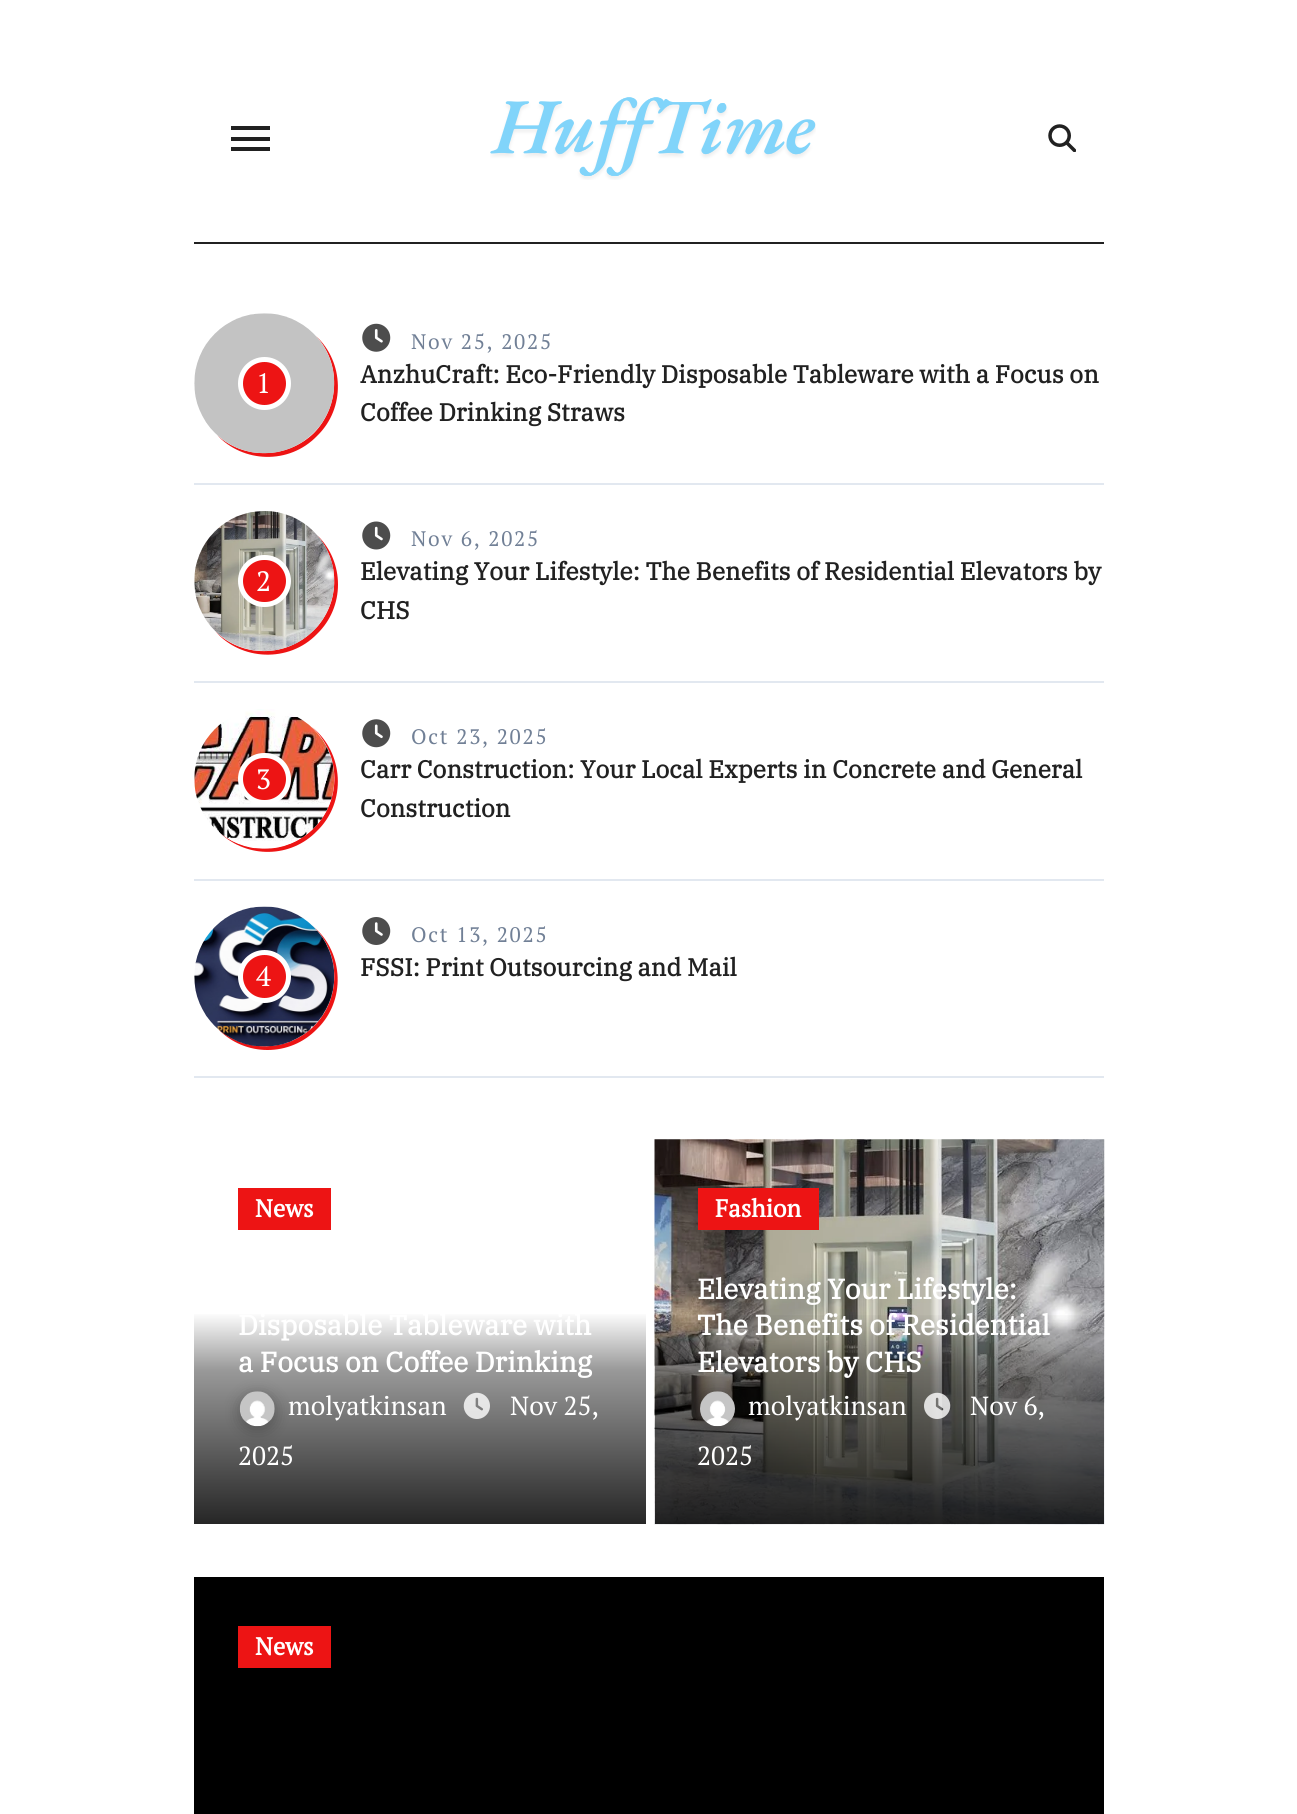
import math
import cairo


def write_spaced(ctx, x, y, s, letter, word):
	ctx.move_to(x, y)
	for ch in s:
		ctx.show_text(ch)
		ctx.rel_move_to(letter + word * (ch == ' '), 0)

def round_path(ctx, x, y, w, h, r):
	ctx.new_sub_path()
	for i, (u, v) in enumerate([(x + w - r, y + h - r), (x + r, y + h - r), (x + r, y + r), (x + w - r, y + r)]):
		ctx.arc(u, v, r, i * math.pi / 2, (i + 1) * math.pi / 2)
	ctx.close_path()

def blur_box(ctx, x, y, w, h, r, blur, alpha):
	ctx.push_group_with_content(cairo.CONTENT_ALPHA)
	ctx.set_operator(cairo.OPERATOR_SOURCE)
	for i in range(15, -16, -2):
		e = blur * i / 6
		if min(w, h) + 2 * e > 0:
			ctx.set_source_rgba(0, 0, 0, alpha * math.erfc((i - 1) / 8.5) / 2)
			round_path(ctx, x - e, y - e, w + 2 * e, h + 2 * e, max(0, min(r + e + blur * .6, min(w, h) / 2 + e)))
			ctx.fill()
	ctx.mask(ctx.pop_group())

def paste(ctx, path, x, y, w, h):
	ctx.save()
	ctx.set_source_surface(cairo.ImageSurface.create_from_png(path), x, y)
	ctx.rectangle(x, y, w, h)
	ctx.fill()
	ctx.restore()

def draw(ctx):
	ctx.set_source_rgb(1, 1, 1)
	ctx.paint()
	ctx.set_source_rgb(0.129, 0.129, 0.129)
	ctx.rectangle(194, 242, 910, 2)
	ctx.rectangle(231, 126, 39, 4)
	ctx.rectangle(231, 137, 39, 4)
	ctx.rectangle(231, 147, 39, 4)
	ctx.fill()
	paste(ctx, 'media/1.png', 490, 97, 326, 83)
	paste(ctx, 'media/2.png', 1048, 124, 28, 28)
	ctx.set_source_rgb(0.886, 0.91, 0.941)
	ctx.rectangle(194, 483, 910, 2)
	ctx.fill()
	ctx.set_source_rgb(0.929, 0.082, 0.082)
	ctx.new_path()
	ctx.move_to(217, 435)
	ctx.curve_to(243, 463, 289, 465, 317, 436)
	ctx.curve_to(346, 408, 344, 362, 316, 336)
	ctx.curve_to(341, 363, 340, 406, 314, 433)
	ctx.curve_to(287, 459, 244, 460, 217, 435)
	ctx.close_path()
	ctx.fill()
	paste(ctx, 'media/3.png', 194, 313, 141, 141)
	ctx.arc(264.5, 383.5, 24, 0, 2 * math.pi)
	ctx.fill_preserve()
	ctx.set_source_rgb(1, 1, 1)
	ctx.set_line_width(5)
	ctx.stroke()
	ctx.select_font_face('PT Serif')
	ctx.set_font_size(28)
	ctx.move_to(256, 393)
	ctx.show_text('1')
	paste(ctx, 'media/4.png', 362, 323, 29, 29)
	ctx.set_font_size(21)
	ctx.set_source_rgb(0.443, 0.502, 0.588)
	write_spaced(ctx, 411, 349, 'Nov 25, 2025', 1.75, 0)
	ctx.select_font_face('IBM Plex Serif', cairo.FONT_SLANT_NORMAL, cairo.FONT_WEIGHT_BOLD)
	ctx.set_font_size(24.5)
	ctx.set_source_rgb(0.129, 0.129, 0.129)
	ctx.move_to(360, 383)
	ctx.show_text('AnzhuCraft: Eco-Friendly Disposable Tableware with a Focus on')
	ctx.move_to(360, 421)
	ctx.show_text('Coffee Drinking Straws')
	ctx.set_source_rgb(0.886, 0.91, 0.941)
	ctx.rectangle(194, 681, 910, 2)
	ctx.fill()
	ctx.set_source_rgb(0.929, 0.082, 0.082)
	ctx.new_path()
	ctx.move_to(215, 631)
	ctx.curve_to(241, 661, 289, 663, 317, 634)
	ctx.curve_to(345, 607, 345, 562, 317, 535)
	ctx.curve_to(341, 563, 340, 604, 314, 630)
	ctx.curve_to(286, 658, 242, 658, 215, 631)
	ctx.close_path()
	ctx.fill()
	paste(ctx, 'media/5.png', 194, 511, 141, 140)
	round_path(ctx, 240.5, 557.5, 48, 47, 23.5)
	ctx.fill_preserve()
	ctx.set_source_rgb(1, 1, 1)
	ctx.stroke()
	ctx.select_font_face('PT Serif')
	ctx.set_font_size(28)
	ctx.move_to(256, 591)
	ctx.show_text('2')
	paste(ctx, 'media/6.png', 362, 521, 29, 29)
	ctx.set_font_size(21)
	ctx.set_source_rgb(0.443, 0.502, 0.588)
	write_spaced(ctx, 411, 546, 'Nov 6, 2025', 1.75, 0)
	ctx.select_font_face('IBM Plex Serif', cairo.FONT_SLANT_NORMAL, cairo.FONT_WEIGHT_BOLD)
	ctx.set_font_size(24.5)
	ctx.set_source_rgb(0.129, 0.129, 0.129)
	ctx.move_to(360, 580)
	ctx.show_text('Elevating Your Lifestyle: The Benefits of Residential Elevators by')
	ctx.move_to(360, 619)
	ctx.show_text('CHS')
	ctx.set_source_rgb(0.886, 0.91, 0.941)
	ctx.rectangle(194, 879, 910, 2)
	ctx.fill()
	ctx.set_source_rgb(0.929, 0.082, 0.082)
	ctx.new_path()
	ctx.move_to(220, 833)
	ctx.curve_to(248, 859, 291, 858, 317, 831)
	ctx.curve_to(347, 802, 344, 753, 312, 727)
	ctx.curve_to(341, 754, 342, 800, 314, 828)
	ctx.curve_to(289, 853, 248, 855, 220, 833)
	ctx.close_path()
	ctx.fill()
	paste(ctx, 'media/7.png', 194, 709, 140, 140)
	round_path(ctx, 240.5, 755.5, 48, 47, 23.5)
	ctx.fill_preserve()
	ctx.set_source_rgb(1, 1, 1)
	ctx.stroke()
	ctx.select_font_face('PT Serif')
	ctx.set_font_size(28)
	ctx.move_to(256, 789)
	ctx.show_text('3')
	paste(ctx, 'media/8.png', 362, 719, 29, 29)
	ctx.set_font_size(21)
	ctx.set_source_rgb(0.443, 0.502, 0.588)
	write_spaced(ctx, 411, 744, 'Oct 23, 2025', 1.75, 0)
	ctx.select_font_face('IBM Plex Serif', cairo.FONT_SLANT_NORMAL, cairo.FONT_WEIGHT_BOLD)
	ctx.set_font_size(24.5)
	ctx.set_source_rgb(0.129, 0.129, 0.129)
	ctx.move_to(360, 778)
	ctx.show_text('Carr Construction: Your Local Experts in Concrete and General')
	ctx.move_to(360, 817)
	ctx.show_text('Construction')
	ctx.set_source_rgb(0.886, 0.91, 0.941)
	ctx.rectangle(194, 1076, 910, 2)
	ctx.fill()
	ctx.set_source_rgb(0.929, 0.082, 0.082)
	ctx.new_path()
	ctx.move_to(218, 1029)
	ctx.curve_to(245, 1057, 290, 1057, 317, 1029)
	ctx.curve_to(346, 1001, 344, 953, 314, 927)
	ctx.curve_to(341, 954, 341, 999, 314, 1026)
	ctx.curve_to(288, 1052, 246, 1053, 218, 1029)
	ctx.close_path()
	ctx.fill()
	paste(ctx, 'media/9.png', 194, 906, 141, 141)
	ctx.arc(264.5, 976.5, 24, 0, 2 * math.pi)
	ctx.fill_preserve()
	ctx.set_source_rgb(1, 1, 1)
	ctx.stroke()
	ctx.select_font_face('PT Serif')
	ctx.set_font_size(28)
	ctx.move_to(256, 986)
	ctx.show_text('4')
	paste(ctx, 'media/10.png', 362, 917, 29, 28)
	ctx.set_font_size(21)
	ctx.set_source_rgb(0.443, 0.502, 0.588)
	write_spaced(ctx, 411, 942, 'Oct 13, 2025', 1.75, 0)
	ctx.select_font_face('IBM Plex Serif', cairo.FONT_SLANT_NORMAL, cairo.FONT_WEIGHT_BOLD)
	ctx.set_font_size(24.5)
	ctx.set_source_rgb(0.129, 0.129, 0.129)
	ctx.move_to(360, 976)
	ctx.show_text('FSSI: Print Outsourcing and Mail')
	ctx.set_source_rgb(0.929, 0.082, 0.082)
	ctx.rectangle(238, 1188, 93, 42)
	ctx.fill()
	ctx.select_font_face('PT Serif', cairo.FONT_SLANT_NORMAL, cairo.FONT_WEIGHT_BOLD)
	ctx.set_source_rgb(1, 1, 1)
	ctx.move_to(255, 1217)
	ctx.show_text('News')
	gradient = cairo.LinearGradient(420, 1139, 420, 1524)
	gradient.add_color_stop_rgba(0, 1, 1, 1, 1)
	gradient.add_color_stop_rgba(0.45, 1, 1, 1, 1)
	gradient.add_color_stop_rgba(0.6, 0.6, 0.6, 0.6, 1)
	gradient.add_color_stop_rgba(1, 0.149, 0.149, 0.149, 1)
	ctx.set_source(gradient)
	ctx.rectangle(194, 1314, 452, 210)
	ctx.fill()
	ctx.select_font_face('IBM Plex Serif', cairo.FONT_SLANT_NORMAL, cairo.FONT_WEIGHT_BOLD)
	ctx.set_font_size(28)
	ctx.set_source_rgb(1, 1, 1)
	ctx.move_to(238, 1335)
	ctx.show_text('Disposable Tableware with')
	ctx.move_to(238, 1372)
	ctx.show_text('a Focus on Coffee Drinking')
	ctx.set_source_rgb(0.129, 0.129, 0.129)
	blur_box(ctx, 238, 1393, 39, 39, 19.5, 7, 0.3)
	paste(ctx, 'media/11.png', 239, 1391, 36, 36)
	paste(ctx, 'media/12.png', 463, 1392, 27, 27)
	ctx.select_font_face('PT Serif')
	ctx.set_font_size(26.25)
	ctx.set_source_rgb(1, 1, 1)
	for x, y, s in [
		(510, 1415, 'Nov 25,'),
		(238, 1465, '2025'),
		(288, 1415, 'molyatkinsan'),
	]:
		ctx.move_to(x, y)
		ctx.show_text(s)
	paste(ctx, 'media/13.png', 654, 1139, 451, 386)
	ctx.set_source_rgb(0.929, 0.082, 0.082)
	ctx.rectangle(698, 1188, 121, 42)
	ctx.fill()
	ctx.select_font_face('PT Serif', cairo.FONT_SLANT_NORMAL, cairo.FONT_WEIGHT_BOLD)
	ctx.set_font_size(24.5)
	ctx.set_source_rgb(1, 1, 1)
	ctx.move_to(715, 1217)
	ctx.show_text('Fashion')
	ctx.select_font_face('IBM Plex Serif', cairo.FONT_SLANT_NORMAL, cairo.FONT_WEIGHT_BOLD)
	ctx.set_font_size(28)
	ctx.move_to(697, 1299)
	ctx.show_text('Elevating Your Lifestyle:')
	gradient = cairo.LinearGradient(879, 1139, 879, 1524)
	gradient.add_color_stop_rgba(0, 0, 0, 0, 0)
	gradient.add_color_stop_rgba(0.45, 0, 0, 0, 0)
	gradient.add_color_stop_rgba(0.6, 0, 0, 0, 0.4)
	gradient.add_color_stop_rgba(1, 0, 0, 0, 0.85)
	ctx.set_source(gradient)
	ctx.rectangle(655, 1315, 449, 209)
	ctx.fill()
	ctx.set_source_rgb(1, 1, 1)
	ctx.move_to(697, 1335)
	ctx.show_text('The Benefits of Residential')
	ctx.move_to(697, 1372)
	ctx.show_text('Elevators by CHS')
	ctx.set_source_rgb(0.129, 0.129, 0.129)
	blur_box(ctx, 698, 1393, 39, 39, 19.5, 7, 0.3)
	paste(ctx, 'media/14.png', 700, 1391, 35, 36)
	ctx.select_font_face('PT Serif')
	ctx.set_font_size(26.25)
	ctx.set_source_rgb(1, 1, 1)
	ctx.move_to(748, 1415)
	ctx.show_text('molyatkinsan')
	paste(ctx, 'media/15.png', 924, 1392, 27, 27)
	ctx.move_to(970, 1415)
	ctx.show_text('Nov 6,')
	ctx.move_to(697, 1465)
	ctx.show_text('2025')
	ctx.set_source_rgb(0, 0, 0)
	ctx.rectangle(194, 1577, 910, 237)
	ctx.fill()
	ctx.set_source_rgb(0.929, 0.082, 0.082)
	ctx.rectangle(238, 1626, 93, 42)
	ctx.fill()
	ctx.select_font_face('PT Serif', cairo.FONT_SLANT_NORMAL, cairo.FONT_WEIGHT_BOLD)
	ctx.set_font_size(24.5)
	ctx.set_source_rgb(1, 1, 1)
	ctx.move_to(255, 1655)
	ctx.show_text('News')


surface = cairo.ImageSurface(cairo.FORMAT_RGB24, 1297, 1814)
ctx = cairo.Context(surface)
options = cairo.FontOptions()
options.set_hint_metrics(cairo.HINT_METRICS_OFF)
options.set_hint_style(cairo.HINT_STYLE_NONE)
ctx.set_font_options(options)
ctx.set_miter_limit(4)
draw(ctx)
surface.write_to_png('image.png')
